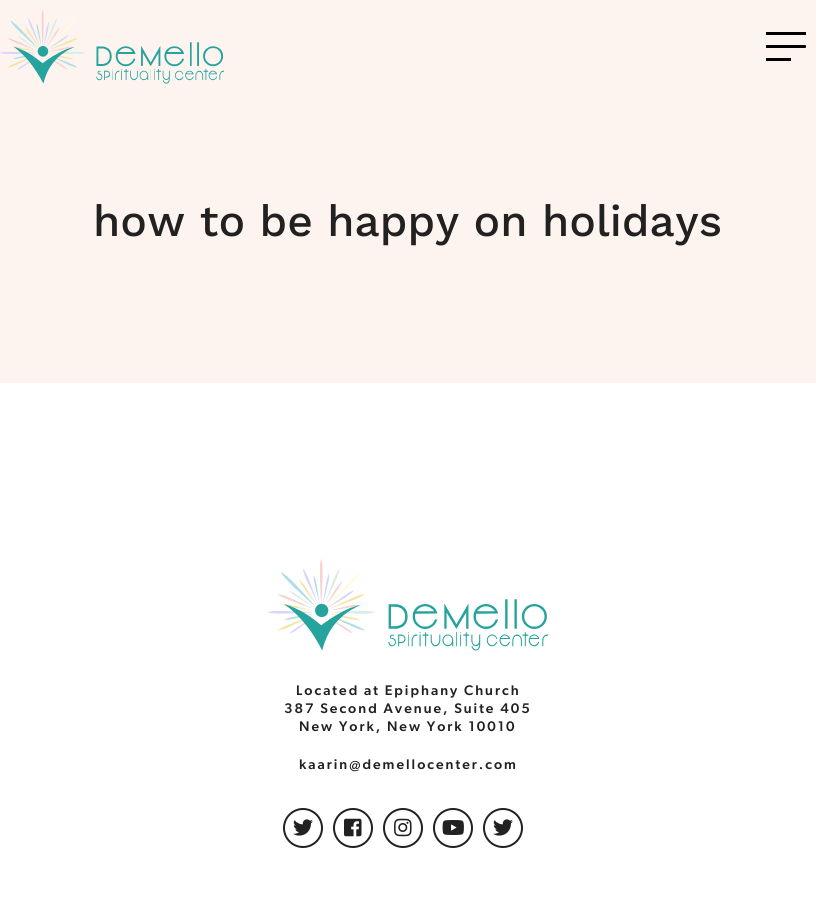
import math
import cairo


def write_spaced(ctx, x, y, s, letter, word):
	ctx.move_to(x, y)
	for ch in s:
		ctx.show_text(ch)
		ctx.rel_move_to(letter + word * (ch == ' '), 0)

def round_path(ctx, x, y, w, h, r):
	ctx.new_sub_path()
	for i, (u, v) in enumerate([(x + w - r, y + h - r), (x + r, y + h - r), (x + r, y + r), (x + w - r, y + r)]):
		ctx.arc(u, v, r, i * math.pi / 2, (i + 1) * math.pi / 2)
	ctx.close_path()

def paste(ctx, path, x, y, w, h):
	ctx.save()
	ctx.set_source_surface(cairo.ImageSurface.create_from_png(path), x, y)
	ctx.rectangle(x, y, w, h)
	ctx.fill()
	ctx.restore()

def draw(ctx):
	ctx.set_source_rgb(1, 1, 1)
	ctx.paint()
	ctx.set_source_rgb(0.992, 0.953, 0.937)
	ctx.rectangle(0, 0, 816, 383)
	ctx.fill()
	paste(ctx, 'media/1.png', 0, 10, 224, 74)
	ctx.set_source_rgb(0, 0, 0)
	ctx.rectangle(766, 32, 40, 3)
	ctx.fill()
	round_path(ctx, 766, 45, 40, 3, 1)
	ctx.fill()
	round_path(ctx, 766, 45, 25, 3, 1)
	ctx.fill()
	ctx.rectangle(766, 58, 25, 3)
	ctx.fill()
	ctx.select_font_face('Work Sans Medium')
	ctx.set_font_size(44.1)
	ctx.set_source_rgb(0.129, 0.129, 0.129)
	ctx.move_to(93, 236)
	ctx.show_text('how to be happy on holidays')
	paste(ctx, 'media/2.png', 268, 559, 280, 92)
	ctx.select_font_face('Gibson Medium')
	ctx.set_font_size(14)
	for x, y, s in [
		(296, 695, 'Located at Epiphany Church'),
		(284, 713, '387 Second Avenue, Suite 405'),
		(299, 731, 'New York, New York 10010'),
		(299, 769, 'kaarin@demellocenter.com'),
	]:
		write_spaced(ctx, x, y, s, 2, 0)
	ctx.new_path()
	ctx.arc(303, 828, 19, 0, 2 * math.pi)
	ctx.stroke()
	paste(ctx, 'media/3.png', 293, 819, 20, 17)
	ctx.arc(353, 828, 19, 0, 2 * math.pi)
	ctx.stroke()
	paste(ctx, 'media/4.png', 344, 818, 18, 19)
	ctx.arc(403, 828, 19, 0, 2 * math.pi)
	ctx.stroke()
	paste(ctx, 'media/5.png', 394, 818, 18, 19)
	ctx.arc(453, 828, 19, 0, 2 * math.pi)
	ctx.stroke()
	paste(ctx, 'media/6.png', 442, 820, 22, 15)
	ctx.arc(503, 828, 19, 0, 2 * math.pi)
	ctx.stroke()
	paste(ctx, 'media/3.png', 493, 819, 20, 17)


surface = cairo.ImageSurface(cairo.FORMAT_RGB24, 816, 903)
ctx = cairo.Context(surface)
options = cairo.FontOptions()
options.set_hint_metrics(cairo.HINT_METRICS_OFF)
options.set_hint_style(cairo.HINT_STYLE_NONE)
ctx.set_font_options(options)
ctx.set_miter_limit(4)
draw(ctx)
surface.write_to_png('image.png')
